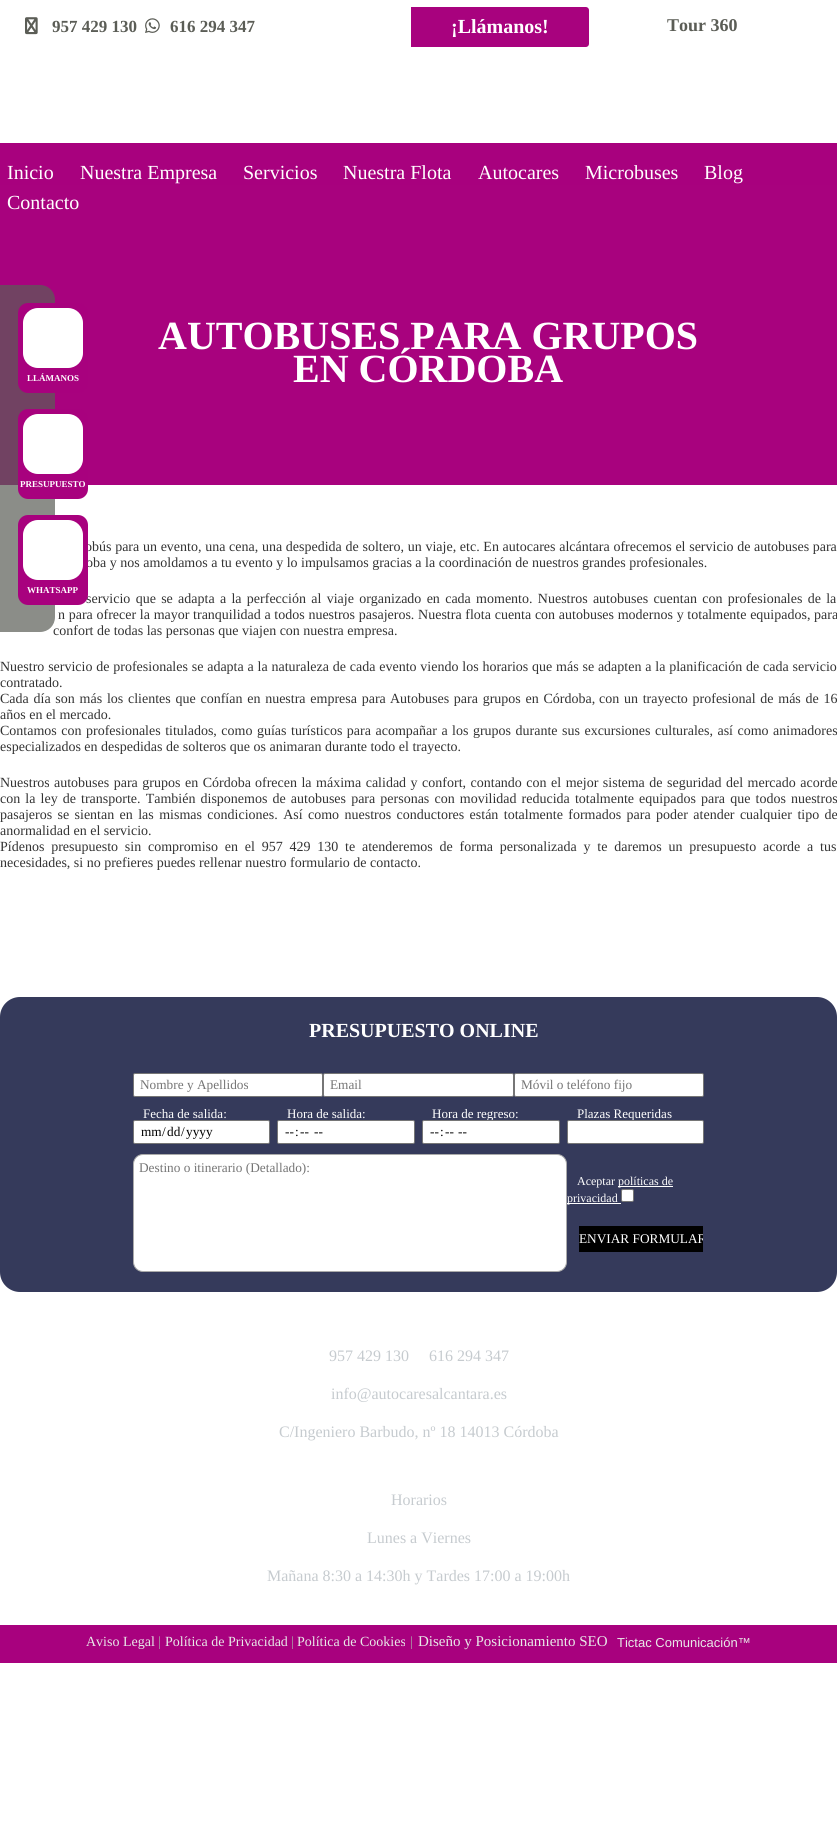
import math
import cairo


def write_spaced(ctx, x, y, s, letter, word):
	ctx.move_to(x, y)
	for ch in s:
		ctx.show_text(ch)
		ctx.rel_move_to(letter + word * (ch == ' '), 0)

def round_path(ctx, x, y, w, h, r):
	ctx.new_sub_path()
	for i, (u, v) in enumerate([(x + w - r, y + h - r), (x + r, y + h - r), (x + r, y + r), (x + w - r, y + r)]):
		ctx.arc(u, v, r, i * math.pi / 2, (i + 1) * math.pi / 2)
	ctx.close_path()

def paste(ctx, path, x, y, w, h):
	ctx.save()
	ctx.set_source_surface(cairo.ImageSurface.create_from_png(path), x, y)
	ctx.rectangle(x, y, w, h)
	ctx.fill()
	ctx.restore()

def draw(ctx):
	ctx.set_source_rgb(1, 1, 1)
	ctx.paint()
	paste(ctx, 'media/1.png', 25, 17, 13, 18)
	ctx.select_font_face('Liberation Serif', cairo.FONT_SLANT_NORMAL, cairo.FONT_WEIGHT_BOLD)
	ctx.set_font_size(17)
	ctx.set_source_rgb(0.357, 0.365, 0.337)
	ctx.move_to(52, 32)
	ctx.show_text('957 429 130')
	paste(ctx, 'media/2.png', 145, 18, 15, 15)
	ctx.move_to(170, 32)
	ctx.show_text('616 294 347')
	ctx.set_source_rgb(0.659, 0.008, 0.494)
	ctx.new_path()
	ctx.move_to(411, 7)
	ctx.line_to(586, 7)
	ctx.curve_to(587.5, 7, 589, 8.5, 589, 10)
	ctx.line_to(589, 44)
	ctx.curve_to(589, 45.5, 587.5, 47, 586, 47)
	ctx.line_to(411, 47)
	ctx.close_path()
	ctx.fill()
	ctx.set_font_size(20)
	ctx.set_source_rgb(1, 1, 1)
	ctx.move_to(451, 33)
	ctx.show_text('¡Llámanos!')
	ctx.set_font_size(18)
	ctx.set_source_rgb(0.357, 0.365, 0.337)
	ctx.move_to(667, 31)
	ctx.show_text('Tour 360')
	ctx.set_source_rgb(0.659, 0.004, 0.494)
	ctx.rectangle(0, 143, 837, 42)
	ctx.fill()
	ctx.select_font_face('Liberation Serif')
	ctx.set_font_size(20)
	ctx.set_source_rgb(1, 1, 1)
	for x, y, s in [
		(7, 179, 'Inicio'),
		(80, 179, 'Nuestra Empresa'),
		(243, 179, 'Servicios'),
		(343, 179, 'Nuestra Flota'),
		(478, 179, 'Autocares'),
		(585, 179, 'Microbuses'),
		(704, 179, 'Blog'),
	]:
		ctx.move_to(x, y)
		ctx.show_text(s)
	ctx.set_source_rgb(0.659, 0.008, 0.494)
	ctx.rectangle(0, 185, 837, 300)
	ctx.fill()
	ctx.set_source_rgb(1, 1, 1)
	ctx.move_to(7, 209)
	ctx.show_text('Contacto')
	ctx.select_font_face('Liberation Serif', cairo.FONT_SLANT_NORMAL, cairo.FONT_WEIGHT_BOLD)
	ctx.set_font_size(40)
	ctx.move_to(158, 349)
	ctx.show_text('AUTOBUSES PARA GRUPOS')
	ctx.move_to(293, 382)
	ctx.show_text('EN CÓRDOBA')
	ctx.select_font_face('Liberation Serif')
	ctx.set_font_size(14)
	ctx.set_source_rgb(0.2, 0.2, 0.2)
	ctx.move_to(53, 635)
	ctx.show_text('confort de todas las personas que viajen con nuestra empresa.')
	ctx.set_source_rgba(0.357, 0.365, 0.337, 0.7)
	ctx.new_path()
	ctx.move_to(-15, 285)
	ctx.line_to(40, 285)
	ctx.curve_to(48.5, 285, 55, 291.5, 55, 300)
	ctx.line_to(55, 617)
	ctx.curve_to(55, 625.5, 48.5, 632, 40, 632)
	ctx.line_to(-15, 632)
	ctx.close_path()
	ctx.fill()
	ctx.set_source_rgb(0.659, 0.004, 0.494)
	round_path(ctx, 18, 303, 70, 90, 10)
	ctx.fill()
	ctx.set_source_rgb(1, 1, 1)
	round_path(ctx, 23, 308, 60, 60, 15)
	ctx.fill()
	ctx.select_font_face('Liberation Serif', cairo.FONT_SLANT_NORMAL, cairo.FONT_WEIGHT_BOLD)
	ctx.set_font_size(9)
	ctx.move_to(27, 381)
	ctx.show_text('LLÁMANOS')
	ctx.set_source_rgb(0.659, 0.004, 0.494)
	round_path(ctx, 18, 409, 70, 90, 10)
	ctx.fill()
	ctx.set_source_rgb(1, 1, 1)
	round_path(ctx, 23, 414, 60, 60, 15)
	ctx.fill()
	ctx.move_to(20, 487)
	ctx.show_text('PRESUPUESTO')
	ctx.select_font_face('Liberation Serif')
	ctx.set_font_size(14)
	ctx.set_source_rgb(0.2, 0.2, 0.2)
	write_spaced(ctx, 85, 551, 'obús para un evento, una cena, una despedida de soltero, un viaje, etc. En autocares alcántara ofrecemos el servicio de', 0, 0.2)
	ctx.move_to(86, 567)
	ctx.show_text('oba y nos amoldamos a tu evento y lo impulsamos gracias a la coordinación de nuestros grandes profesionales.')
	write_spaced(ctx, 86, 603, 'servicio que se adapta a la perfección al viaje organizado en cada momento. Nuestros autobuses cuentan con profesionales de la', 0, 1.8)
	ctx.set_source_rgb(0.659, 0.004, 0.494)
	round_path(ctx, 18, 515, 70, 90, 10)
	ctx.fill()
	ctx.set_source_rgb(1, 1, 1)
	round_path(ctx, 23, 520, 60, 60, 15)
	ctx.fill()
	ctx.select_font_face('Liberation Serif', cairo.FONT_SLANT_NORMAL, cairo.FONT_WEIGHT_BOLD)
	ctx.set_font_size(9)
	ctx.move_to(27, 593)
	ctx.show_text('WHATSAPP')
	ctx.select_font_face('Liberation Serif')
	ctx.set_font_size(14)
	ctx.set_source_rgb(0.2, 0.2, 0.2)
	ctx.move_to(754, 551)
	ctx.show_text('autobuses para')
	write_spaced(ctx, 58, 619, 'n para ofrecer la mayor tranquilidad a todos nuestros pasajeros. Nuestra flota cuenta con autobuses modernos y totalmente equipados, para', 0, 0.2)
	write_spaced(ctx, 0, 671, 'Nuestro servicio de profesionales se adapta a la naturaleza de cada evento viendo los horarios que más se adapten a la planificación de cada servicio', 0, 0.3)
	ctx.move_to(0, 687)
	ctx.show_text('contratado.')
	for x, y, s in [
		(0, 703, 'Cada día son más los clientes que confían en nuestra empresa para'),
		(390, 703, 'Autobuses para grupos en Córdoba,'),
		(599, 703, 'con un trayecto profesional de más de 16'),
	]:
		write_spaced(ctx, x, y, s, 0, 1.25)
	ctx.move_to(0, 719)
	ctx.show_text('años en el mercado.')
	write_spaced(ctx, 0, 735, 'Contamos con profesionales titulados, como guías turísticos para acompañar a los grupos durante sus excursiones culturales, así como animadores', 0, 1)
	ctx.move_to(0, 751)
	ctx.show_text('especializados en despedidas de solteros que os animaran durante todo el trayecto.')
	ctx.move_to(0, 787)
	ctx.show_text('Nuestros')
	write_spaced(ctx, 54, 787, 'autobuses para grupos en Córdoba', 0, 1)
	write_spaced(ctx, 255, 787, 'ofrecen la máxima calidad y confort, contando con el mejor sistema de seguridad del mercado acorde', 0, 1)
	write_spaced(ctx, 0, 803, 'con la ley de transporte. También disponemos de autobuses para personas con movilidad reducida totalmente equipados para que todos nuestros', 0, 1.6)
	write_spaced(ctx, 0, 819, 'pasajeros se sientan en las mismas condiciones. Así como nuestros conductores están totalmente formados para poder atender cualquier tipo de', 0, 1.9)
	ctx.move_to(0, 835)
	ctx.show_text('anormalidad en el servicio.')
	write_spaced(ctx, 0, 851, 'Pídenos presupuesto sin compromiso en el 957 429 130 te atenderemos de forma personalizada y te daremos un presupuesto acorde a tus', 0, 3.3)
	ctx.move_to(0, 867)
	ctx.show_text('necesidades, si no prefieres puedes rellenar nuestro formulario de contacto.')
	ctx.set_source_rgb(0.208, 0.227, 0.357)
	round_path(ctx, 0, 997, 837, 295, 20)
	ctx.fill()
	ctx.select_font_face('Liberation Serif', cairo.FONT_SLANT_NORMAL, cairo.FONT_WEIGHT_BOLD)
	ctx.set_font_size(20)
	ctx.set_source_rgb(1, 1, 1)
	ctx.move_to(309, 1037)
	ctx.show_text('PRESUPUESTO ONLINE')
	round_path(ctx, 133.5, 1073.5, 189, 23, 1.5)
	ctx.fill_preserve()
	ctx.set_source_rgb(0.463, 0.463, 0.463)
	ctx.set_line_width(1)
	ctx.stroke()
	ctx.select_font_face('Liberation Serif')
	ctx.set_font_size(13.3)
	ctx.set_source_rgb(0.459, 0.459, 0.459)
	ctx.move_to(140, 1089)
	ctx.show_text('Nombre y Apellidos')
	ctx.set_source_rgb(1, 1, 1)
	round_path(ctx, 323.5, 1073.5, 190, 23, 1.5)
	ctx.fill_preserve()
	ctx.set_source_rgb(0.463, 0.463, 0.463)
	ctx.stroke()
	ctx.set_source_rgb(0.459, 0.459, 0.459)
	ctx.move_to(330, 1089)
	ctx.show_text('Email')
	ctx.set_source_rgb(1, 1, 1)
	round_path(ctx, 514.5, 1073.5, 189, 23, 1.5)
	ctx.fill_preserve()
	ctx.set_source_rgb(0.463, 0.463, 0.463)
	ctx.stroke()
	ctx.set_source_rgb(0.459, 0.459, 0.459)
	ctx.move_to(521, 1089)
	ctx.show_text('Móvil o teléfono fijo')
	ctx.set_font_size(13)
	ctx.set_source_rgb(1, 1, 1)
	ctx.move_to(143, 1118)
	ctx.show_text('Fecha de salida:')
	round_path(ctx, 133.5, 1120.5, 136, 23, 1.5)
	ctx.fill_preserve()
	ctx.set_source_rgb(0.463, 0.463, 0.463)
	ctx.stroke()
	ctx.set_font_size(13.3)
	ctx.set_source_rgb(0, 0, 0)
	for x, y, s in [
		(141, 1136, 'mm'),
		(162, 1136, '/'),
		(167, 1136, 'dd'),
		(181, 1136, '/'),
		(186, 1136, 'yyyy'),
	]:
		ctx.move_to(x, y)
		ctx.show_text(s)
	ctx.set_font_size(13)
	ctx.set_source_rgb(1, 1, 1)
	ctx.move_to(287, 1118)
	ctx.show_text('Hora de salida:')
	round_path(ctx, 277.5, 1120.5, 137, 23, 1.5)
	ctx.fill_preserve()
	ctx.set_source_rgb(0.463, 0.463, 0.463)
	ctx.stroke()
	ctx.set_font_size(13.3)
	ctx.set_source_rgb(0, 0, 0)
	for x, y, s in [
		(285, 1136, '--'),
		(295, 1136, ':'),
		(300, 1136, '--'),
		(314, 1136, '--'),
	]:
		ctx.move_to(x, y)
		ctx.show_text(s)
	ctx.set_font_size(13)
	ctx.set_source_rgb(1, 1, 1)
	ctx.move_to(432, 1118)
	ctx.show_text('Hora de regreso:')
	round_path(ctx, 422.5, 1120.5, 137, 23, 1.5)
	ctx.fill_preserve()
	ctx.set_source_rgb(0.463, 0.463, 0.463)
	ctx.stroke()
	ctx.set_font_size(13.3)
	ctx.set_source_rgb(0, 0, 0)
	for x, y, s in [
		(430, 1136, '--'),
		(440, 1136, ':'),
		(445, 1136, '--'),
		(458, 1136, '--'),
	]:
		ctx.move_to(x, y)
		ctx.show_text(s)
	ctx.set_font_size(13)
	ctx.set_source_rgb(1, 1, 1)
	ctx.move_to(577, 1118)
	ctx.show_text('Plazas Requeridas')
	round_path(ctx, 567.5, 1120.5, 136, 23, 1.5)
	ctx.fill_preserve()
	ctx.set_source_rgb(0.463, 0.463, 0.463)
	ctx.stroke()
	ctx.set_source_rgb(1, 1, 1)
	round_path(ctx, 133.5, 1154.5, 433, 117, 9.5)
	ctx.fill_preserve()
	ctx.set_source_rgb(0.667, 0.667, 0.667)
	ctx.stroke()
	ctx.set_font_size(13.3)
	ctx.set_source_rgb(0.459, 0.459, 0.459)
	ctx.move_to(139, 1172)
	ctx.show_text('Destino o itinerario (Detallado):')
	ctx.set_font_size(12)
	ctx.set_source_rgb(1, 1, 1)
	ctx.move_to(577, 1185)
	ctx.show_text('Aceptar')
	ctx.rectangle(618, 1186, 55, 1)
	ctx.fill()
	ctx.move_to(618, 1185)
	ctx.show_text('políticas de')
	ctx.rectangle(567, 1203, 54, 1)
	ctx.fill()
	ctx.move_to(567, 1202)
	ctx.show_text('privacidad')
	round_path(ctx, 621.5, 1189.5, 12, 12, 1.5)
	ctx.fill_preserve()
	ctx.set_source_rgb(0.463, 0.463, 0.463)
	ctx.stroke()
	ctx.set_source_rgb(0, 0, 0)
	ctx.rectangle(579, 1226, 124, 26)
	ctx.fill()
	ctx.save()
	ctx.rectangle(579, 1226, 124, 26)
	ctx.clip()
	ctx.set_font_size(13.3)
	ctx.set_source_rgb(1, 1, 1)
	ctx.move_to(579, 1243)
	ctx.show_text('ENVIAR FORMULAR')
	ctx.restore()
	ctx.set_font_size(16)
	ctx.set_source_rgb(0.776, 0.796, 0.812)
	for x, y, s in [
		(329, 1361, '957 429 130'),
		(429, 1361, '616 294 347'),
		(331, 1399, 'info@autocaresalcantara.es'),
		(279, 1437, 'C/Ingeniero Barbudo, nº 18 14013 Córdoba'),
		(391, 1505, 'Horarios'),
		(367, 1543, 'Lunes a Viernes'),
		(267, 1581, 'Mañana 8:30 a 14:30h y Tardes 17:00 a 19:00h'),
	]:
		ctx.move_to(x, y)
		ctx.show_text(s)
	ctx.set_source_rgb(0.659, 0.004, 0.494)
	ctx.rectangle(0, 1625, 837, 38)
	ctx.fill()
	ctx.set_font_size(14)
	ctx.set_source_rgb(0.91, 0.91, 0.91)
	ctx.move_to(86, 1646)
	ctx.show_text('Aviso Legal')
	ctx.set_source_rgb(0.667, 0.667, 0.667)
	ctx.move_to(158, 1646)
	ctx.show_text('|')
	ctx.set_source_rgb(0.91, 0.91, 0.91)
	ctx.move_to(165, 1646)
	ctx.show_text('Política de Privacidad')
	ctx.set_source_rgb(0.667, 0.667, 0.667)
	ctx.move_to(291, 1646)
	ctx.show_text('|')
	ctx.set_source_rgb(0.91, 0.91, 0.91)
	ctx.move_to(297, 1646)
	ctx.show_text('Política de Cookies')
	ctx.set_source_rgb(0.667, 0.667, 0.667)
	ctx.move_to(410, 1646)
	ctx.show_text('|')
	ctx.set_font_size(15)
	ctx.set_source_rgb(0.91, 0.91, 0.91)
	ctx.move_to(418, 1646)
	ctx.show_text('Diseño y Posicionamiento SEO')
	ctx.select_font_face('Liberation Sans')
	ctx.set_font_size(13)
	ctx.move_to(617, 1647)
	ctx.show_text('Tictac Comunicación™')


surface = cairo.ImageSurface(cairo.FORMAT_RGB24, 837, 1821)
ctx = cairo.Context(surface)
options = cairo.FontOptions()
options.set_hint_metrics(cairo.HINT_METRICS_OFF)
options.set_hint_style(cairo.HINT_STYLE_NONE)
ctx.set_font_options(options)
ctx.set_miter_limit(4)
draw(ctx)
surface.write_to_png('image.png')
